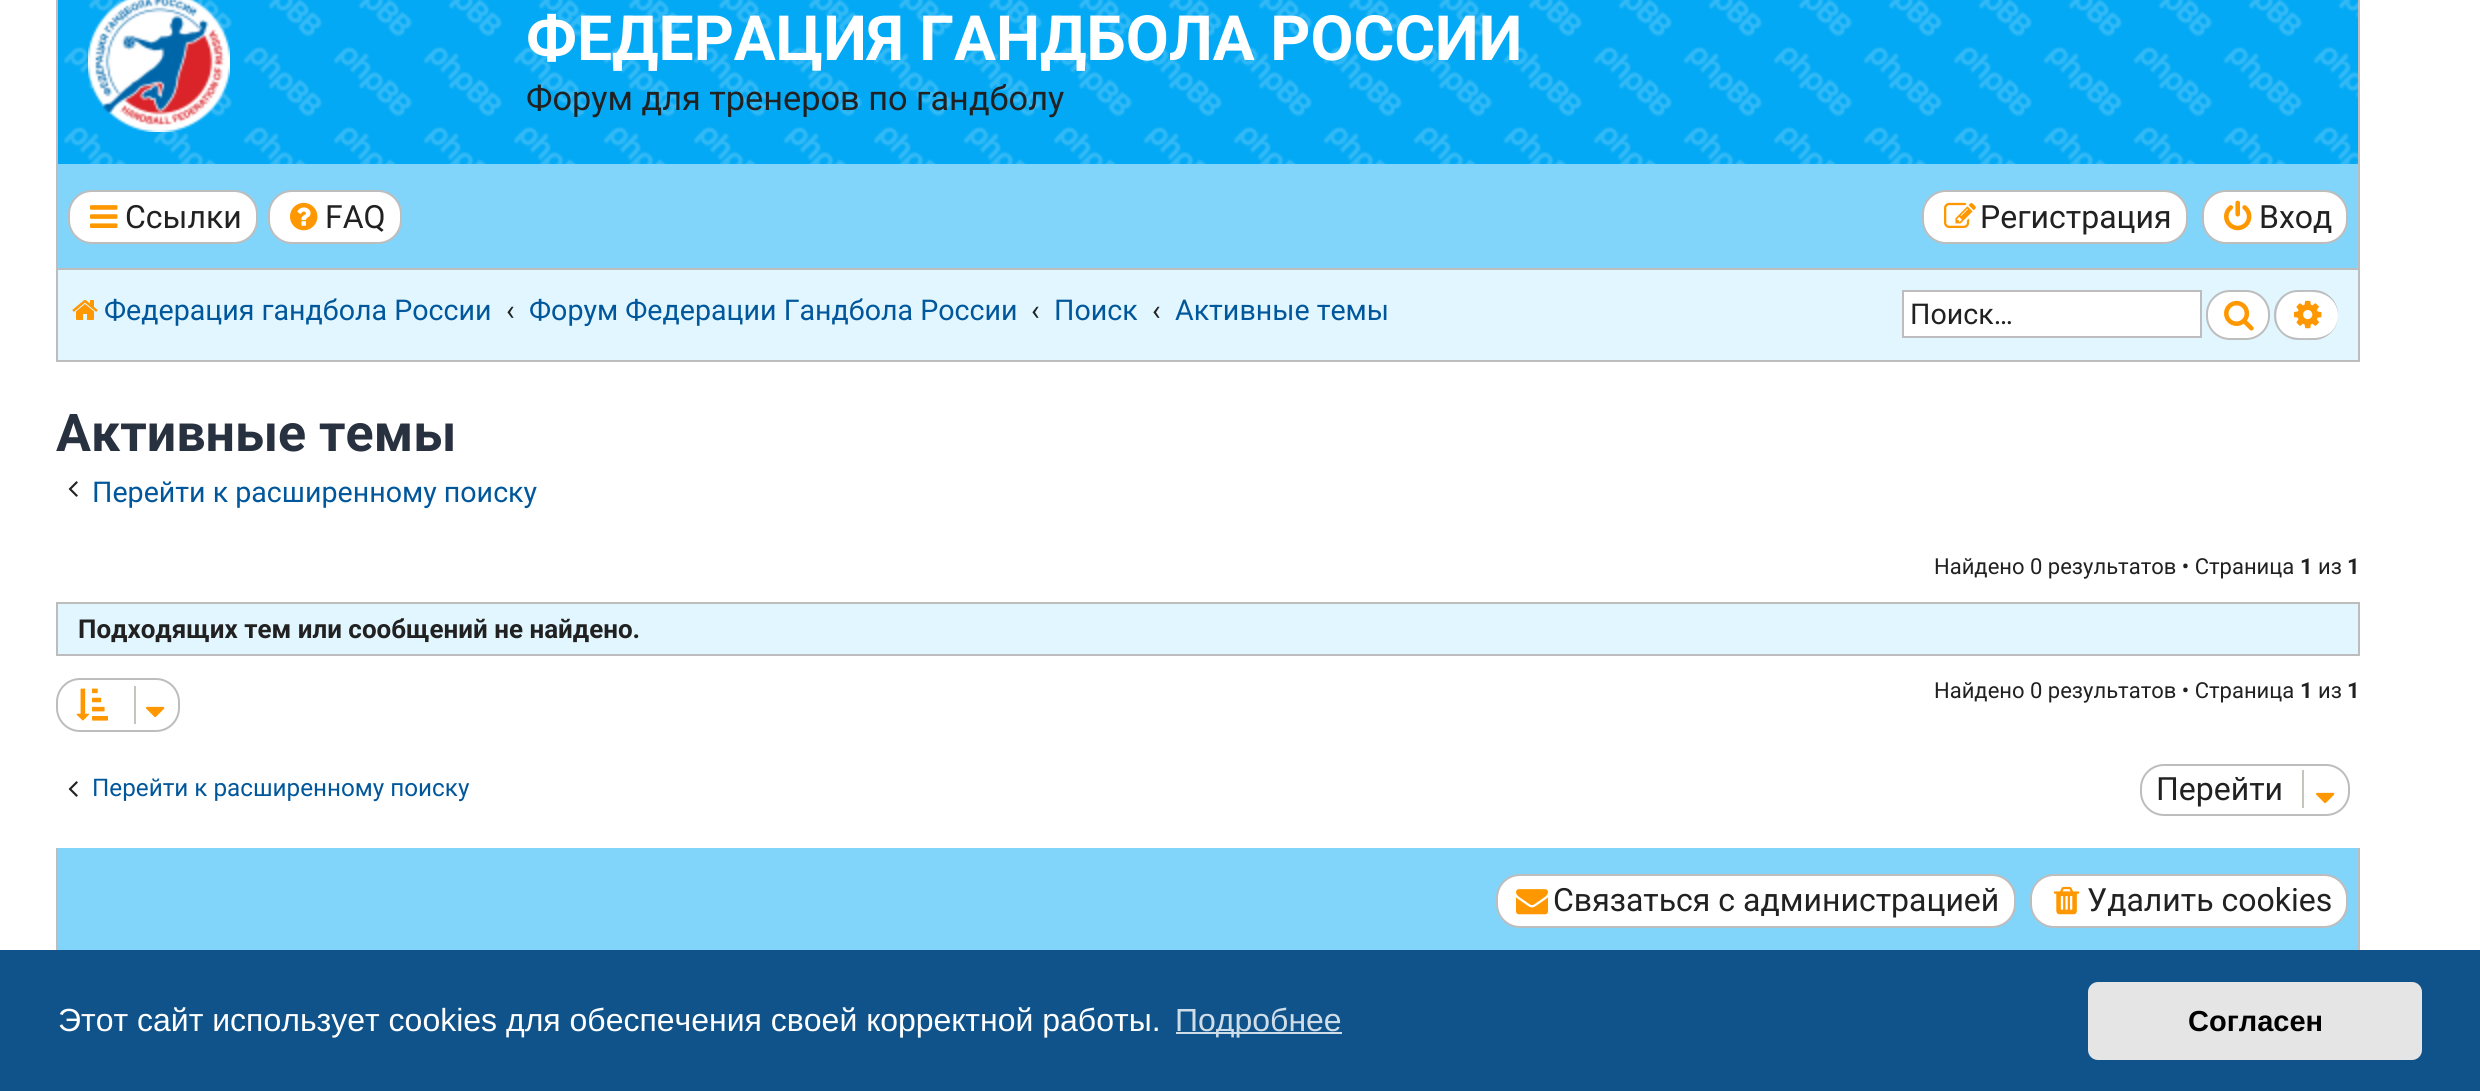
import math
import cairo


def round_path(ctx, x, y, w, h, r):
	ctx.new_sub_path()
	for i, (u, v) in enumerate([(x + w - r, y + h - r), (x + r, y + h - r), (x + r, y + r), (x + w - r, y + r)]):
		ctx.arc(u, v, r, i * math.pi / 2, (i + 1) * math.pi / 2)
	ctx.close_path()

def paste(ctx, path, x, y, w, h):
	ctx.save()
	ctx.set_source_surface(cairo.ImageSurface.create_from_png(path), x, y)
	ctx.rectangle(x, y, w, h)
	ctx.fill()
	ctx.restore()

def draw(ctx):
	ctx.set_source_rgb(1, 1, 1)
	ctx.paint()
	ctx.set_source_rgb(0.012, 0.663, 0.957)
	ctx.rectangle(58, 0, 2300, 164)
	ctx.fill()
	paste(ctx, 'media/1.png', 63, 0, 2295, 164)
	ctx.set_source_rgb(0.741, 0.741, 0.741)
	ctx.rectangle(2358, 0, 2, 362)
	ctx.fill()
	ctx.rectangle(56, 0, 2, 164)
	ctx.fill()
	paste(ctx, 'media/2.png', 88, 0, 142, 132)
	ctx.select_font_face('Roboto', cairo.FONT_SLANT_NORMAL, cairo.FONT_WEIGHT_BOLD)
	ctx.set_font_size(62.4)
	ctx.set_source_rgb(1, 1, 1)
	ctx.move_to(526, 60)
	ctx.show_text('ФЕДЕРАЦИЯ ГАНДБОЛА РОССИИ')
	ctx.select_font_face('Roboto')
	ctx.set_font_size(34.3)
	ctx.set_source_rgb(0.129, 0.129, 0.129)
	ctx.move_to(526, 110)
	ctx.show_text('Форум для тренеров по гандболу')
	ctx.set_source_rgb(0.506, 0.831, 0.98)
	ctx.rectangle(58, 164, 2300, 104)
	ctx.fill()
	ctx.set_source_rgb(0.741, 0.741, 0.741)
	ctx.rectangle(56, 360, 2304, 2)
	ctx.rectangle(56, 164, 2, 198)
	ctx.fill()
	ctx.set_source_rgb(1, 1, 1)
	round_path(ctx, 69, 191, 188, 52, 23)
	ctx.fill_preserve()
	ctx.set_source_rgb(0.741, 0.741, 0.741)
	ctx.stroke()
	paste(ctx, 'media/3.png', 90, 205, 28, 23)
	ctx.set_font_size(32)
	ctx.set_source_rgb(0.129, 0.129, 0.129)
	ctx.move_to(125, 228)
	ctx.show_text('Ссылки')
	ctx.set_source_rgb(1, 1, 1)
	round_path(ctx, 269, 191, 132, 52, 23)
	ctx.fill_preserve()
	ctx.set_source_rgb(0.741, 0.741, 0.741)
	ctx.stroke()
	paste(ctx, 'media/4.png', 290, 202, 28, 29)
	ctx.set_source_rgb(0.129, 0.129, 0.129)
	ctx.move_to(325, 228)
	ctx.show_text('FAQ')
	ctx.set_source_rgb(1, 1, 1)
	round_path(ctx, 1923, 191, 264, 52, 23)
	ctx.fill_preserve()
	ctx.set_source_rgb(0.741, 0.741, 0.741)
	ctx.stroke()
	paste(ctx, 'media/5.png', 1944, 202, 32, 26)
	ctx.set_source_rgb(0.129, 0.129, 0.129)
	ctx.move_to(1980, 228)
	ctx.show_text('Регистрация')
	ctx.set_source_rgb(1, 1, 1)
	round_path(ctx, 2203, 191, 144, 52, 23)
	ctx.fill_preserve()
	ctx.set_source_rgb(0.741, 0.741, 0.741)
	ctx.stroke()
	paste(ctx, 'media/6.png', 2224, 200, 28, 31)
	ctx.set_source_rgb(0.129, 0.129, 0.129)
	ctx.move_to(2259, 228)
	ctx.show_text('Вход')
	ctx.set_source_rgb(0.882, 0.961, 0.996)
	ctx.rectangle(58, 270, 2300, 90)
	ctx.fill()
	ctx.set_source_rgb(0.741, 0.741, 0.741)
	ctx.rectangle(58, 268, 2300, 2)
	ctx.fill()
	paste(ctx, 'media/7.png', 72, 300, 26, 20)
	ctx.set_font_size(28.6)
	ctx.set_source_rgb(0.004, 0.341, 0.608)
	ctx.move_to(104, 320)
	ctx.show_text('Федерация гандбола России')
	ctx.set_source_rgb(0.129, 0.129, 0.129)
	ctx.move_to(506, 320)
	ctx.show_text('‹')
	ctx.set_source_rgb(0.004, 0.341, 0.608)
	ctx.move_to(529, 320)
	ctx.show_text('Форум Федерации Гандбола России')
	ctx.set_source_rgb(0.129, 0.129, 0.129)
	ctx.move_to(1031, 320)
	ctx.show_text('‹')
	ctx.set_source_rgb(0.004, 0.341, 0.608)
	ctx.move_to(1054, 320)
	ctx.show_text('Поиск')
	ctx.set_source_rgb(0.129, 0.129, 0.129)
	ctx.move_to(1152, 320)
	ctx.show_text('‹')
	ctx.set_source_rgb(0.004, 0.341, 0.608)
	ctx.move_to(1175, 320)
	ctx.show_text('Активные темы')
	ctx.set_source_rgb(1, 1, 1)
	ctx.rectangle(1903, 291, 298, 46)
	ctx.fill_preserve()
	ctx.set_source_rgb(0.741, 0.741, 0.741)
	ctx.stroke()
	ctx.set_source_rgb(0.129, 0.129, 0.129)
	ctx.move_to(1910, 324)
	ctx.show_text('Поиск…')
	ctx.set_source_rgb(1, 1, 1)
	round_path(ctx, 2207, 291, 62, 48, 23)
	ctx.fill_preserve()
	ctx.set_source_rgb(0.741, 0.741, 0.741)
	ctx.stroke()
	paste(ctx, 'media/8.png', 2224, 300, 30, 31)
	ctx.set_source_rgb(1, 1, 1)
	ctx.new_path()
	ctx.move_to(2298, 292)
	ctx.curve_to(2306, 292, 2316, 291, 2323, 294)
	ctx.curve_to(2339, 300, 2343, 320, 2331, 332)
	ctx.curve_to(2326, 336, 2320, 338, 2314, 338)
	ctx.curve_to(2307, 338, 2296, 339, 2289, 336)
	ctx.curve_to(2268, 327, 2274, 292, 2298, 292)
	ctx.close_path()
	ctx.fill()
	ctx.set_source_rgb(0.741, 0.741, 0.741)
	ctx.set_fill_rule(cairo.FILL_RULE_EVEN_ODD)
	ctx.new_path()
	ctx.move_to(2298, 290)
	ctx.line_to(2314, 290)
	ctx.curve_to(2327, 290, 2338, 301, 2338, 314)
	ctx.line_to(2338, 316)
	ctx.curve_to(2338, 329, 2327, 340, 2314, 340)
	ctx.line_to(2298, 340)
	ctx.curve_to(2285, 340, 2274, 329, 2274, 316)
	ctx.line_to(2274, 314)
	ctx.curve_to(2274, 301, 2285, 290, 2298, 290)
	ctx.close_path()
	ctx.move_to(2298, 292)
	ctx.curve_to(2306, 292, 2316, 291, 2323, 294)
	ctx.curve_to(2339, 300, 2343, 320, 2331, 332)
	ctx.curve_to(2326, 336, 2320, 338, 2314, 338)
	ctx.curve_to(2307, 338, 2296, 339, 2289, 336)
	ctx.curve_to(2268, 327, 2274, 292, 2298, 292)
	ctx.close_path()
	ctx.fill()
	paste(ctx, 'media/9.png', 2294, 300, 28, 29)
	ctx.select_font_face('Roboto', cairo.FONT_SLANT_NORMAL, cairo.FONT_WEIGHT_BOLD)
	ctx.set_font_size(52)
	ctx.set_source_rgb(0.157, 0.192, 0.247)
	ctx.move_to(56, 451)
	ctx.show_text('Активные темы')
	paste(ctx, 'media/10.png', 68, 481, 10, 16)
	ctx.select_font_face('Roboto')
	ctx.set_font_size(28.6)
	ctx.set_source_rgb(0.004, 0.341, 0.608)
	ctx.move_to(92, 502)
	ctx.show_text('Перейти к расширенному поиску')
	ctx.set_font_size(22)
	ctx.set_source_rgb(0.129, 0.129, 0.129)
	ctx.move_to(1934, 574)
	ctx.show_text('Найдено 0 результатов • Страница')
	ctx.select_font_face('Roboto', cairo.FONT_SLANT_NORMAL, cairo.FONT_WEIGHT_BOLD)
	ctx.move_to(2300, 574)
	ctx.show_text('1')
	ctx.select_font_face('Roboto')
	ctx.move_to(2318, 574)
	ctx.show_text('из')
	ctx.select_font_face('Roboto', cairo.FONT_SLANT_NORMAL, cairo.FONT_WEIGHT_BOLD)
	ctx.move_to(2347, 574)
	ctx.show_text('1')
	ctx.set_source_rgb(0.882, 0.961, 0.996)
	ctx.rectangle(57, 603, 2302, 52)
	ctx.fill_preserve()
	ctx.set_source_rgb(0.741, 0.741, 0.741)
	ctx.stroke()
	ctx.set_font_size(26)
	ctx.set_source_rgb(0.129, 0.129, 0.129)
	ctx.move_to(78, 638)
	ctx.show_text('Подходящих тем или сообщений не найдено.')
	round_path(ctx, 57, 679, 122, 52, 23)
	ctx.set_source_rgb(0.741, 0.741, 0.741)
	ctx.stroke()
	paste(ctx, 'media/11.png', 76, 688, 32, 33)
	ctx.set_source_rgb(0.78, 0.765, 0.749)
	ctx.rectangle(134, 686, 2, 38)
	ctx.fill()
	paste(ctx, 'media/12.png', 146, 706, 19, 12)
	ctx.select_font_face('Roboto')
	ctx.set_font_size(22)
	ctx.set_source_rgb(0.129, 0.129, 0.129)
	ctx.move_to(1934, 698)
	ctx.show_text('Найдено 0 результатов • Страница')
	ctx.select_font_face('Roboto', cairo.FONT_SLANT_NORMAL, cairo.FONT_WEIGHT_BOLD)
	ctx.move_to(2300, 698)
	ctx.show_text('1')
	ctx.select_font_face('Roboto')
	ctx.move_to(2318, 698)
	ctx.show_text('из')
	ctx.select_font_face('Roboto', cairo.FONT_SLANT_NORMAL, cairo.FONT_WEIGHT_BOLD)
	ctx.move_to(2347, 698)
	ctx.show_text('1')
	paste(ctx, 'media/10.png', 68, 781, 10, 16)
	ctx.select_font_face('Roboto')
	ctx.set_font_size(24.25)
	ctx.set_source_rgb(0.004, 0.341, 0.608)
	ctx.move_to(92, 796)
	ctx.show_text('Перейти к расширенному поиску')
	round_path(ctx, 2141, 765, 208, 50, 23)
	ctx.set_source_rgb(0.741, 0.741, 0.741)
	ctx.stroke()
	ctx.set_font_size(32)
	ctx.set_source_rgb(0.129, 0.129, 0.129)
	ctx.move_to(2156, 800)
	ctx.show_text('Перейти')
	ctx.set_source_rgb(0.78, 0.765, 0.749)
	ctx.rectangle(2302, 770, 2, 38)
	ctx.fill()
	paste(ctx, 'media/12.png', 2316, 792, 19, 12)
	ctx.set_source_rgb(0.506, 0.831, 0.98)
	ctx.rectangle(58, 848, 2300, 102)
	ctx.fill()
	ctx.set_source_rgb(0.741, 0.741, 0.741)
	ctx.rectangle(2358, 848, 2, 104)
	ctx.rectangle(56, 848, 2, 104)
	ctx.fill()
	ctx.set_source_rgb(1, 1, 1)
	round_path(ctx, 1497, 875, 518, 52, 23)
	ctx.fill_preserve()
	ctx.set_source_rgb(0.741, 0.741, 0.741)
	ctx.stroke()
	paste(ctx, 'media/13.png', 1516, 889, 32, 26)
	ctx.set_source_rgb(0.129, 0.129, 0.129)
	ctx.move_to(1553, 911)
	ctx.show_text('Связаться с администрацией')
	ctx.set_source_rgb(1, 1, 1)
	round_path(ctx, 2031, 875, 316, 52, 23)
	ctx.fill_preserve()
	ctx.set_source_rgb(0.741, 0.741, 0.741)
	ctx.stroke()
	paste(ctx, 'media/14.png', 2054, 886, 26, 29)
	ctx.set_source_rgb(0.129, 0.129, 0.129)
	ctx.move_to(2087, 911)
	ctx.show_text('Удалить cookies')
	ctx.set_source_rgb(0.059, 0.325, 0.541)
	ctx.rectangle(0, 950, 2480, 141)
	ctx.fill()
	ctx.select_font_face('Liberation Sans')
	ctx.set_source_rgb(1, 1, 1)
	ctx.move_to(58, 1031)
	ctx.show_text('Этот сайт использует cookies для обеспечения своей корректной работы.')
	ctx.set_source_rgb(0.812, 0.867, 0.91)
	ctx.rectangle(1176, 1032, 166, 2)
	ctx.fill()
	ctx.move_to(1175, 1031)
	ctx.show_text('Подробнее')
	ctx.set_source_rgb(0.898, 0.898, 0.898)
	round_path(ctx, 2088, 982, 334, 78, 10)
	ctx.fill()
	ctx.select_font_face('Liberation Sans', cairo.FONT_SLANT_NORMAL, cairo.FONT_WEIGHT_BOLD)
	ctx.set_font_size(29)
	ctx.set_source_rgb(0, 0, 0)
	ctx.move_to(2188, 1031)
	ctx.show_text('Согласен')


surface = cairo.ImageSurface(cairo.FORMAT_RGB24, 2480, 1091)
ctx = cairo.Context(surface)
options = cairo.FontOptions()
options.set_hint_metrics(cairo.HINT_METRICS_OFF)
options.set_hint_style(cairo.HINT_STYLE_NONE)
ctx.set_font_options(options)
ctx.set_miter_limit(4)
draw(ctx)
surface.write_to_png('image.png')
